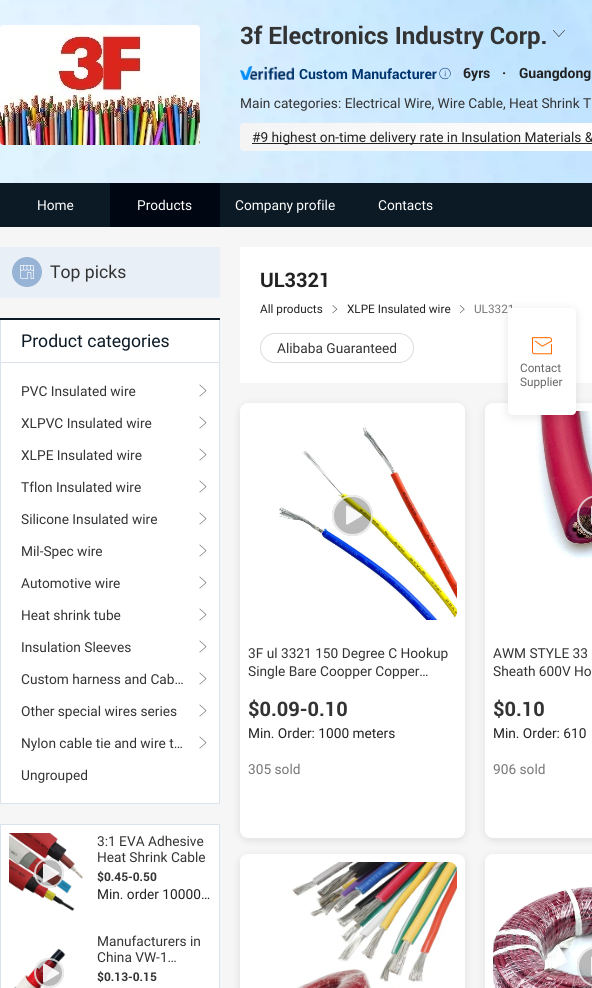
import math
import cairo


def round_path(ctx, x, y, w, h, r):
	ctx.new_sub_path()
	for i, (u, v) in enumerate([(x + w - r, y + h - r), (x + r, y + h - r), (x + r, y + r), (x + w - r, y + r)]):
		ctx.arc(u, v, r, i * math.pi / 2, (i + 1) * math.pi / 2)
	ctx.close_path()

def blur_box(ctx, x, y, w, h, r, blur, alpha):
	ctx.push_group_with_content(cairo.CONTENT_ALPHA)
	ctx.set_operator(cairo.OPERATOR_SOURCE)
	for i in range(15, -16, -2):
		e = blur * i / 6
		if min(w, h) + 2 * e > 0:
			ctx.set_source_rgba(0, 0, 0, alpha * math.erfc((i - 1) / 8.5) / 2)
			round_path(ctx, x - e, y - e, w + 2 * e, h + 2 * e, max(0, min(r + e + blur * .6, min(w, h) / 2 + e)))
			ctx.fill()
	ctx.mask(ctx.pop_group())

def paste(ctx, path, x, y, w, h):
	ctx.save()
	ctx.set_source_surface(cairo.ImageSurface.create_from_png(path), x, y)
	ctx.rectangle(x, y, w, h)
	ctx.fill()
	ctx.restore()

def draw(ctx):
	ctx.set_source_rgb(0.961, 0.961, 0.961)
	ctx.paint()
	paste(ctx, 'media/1.png', 0, 0, 592, 183)
	paste(ctx, 'media/2.png', 0, 25, 200, 120)
	ctx.select_font_face('Roboto', cairo.FONT_SLANT_NORMAL, cairo.FONT_WEIGHT_BOLD)
	ctx.set_font_size(24)
	ctx.set_source_rgb(0.2, 0.2, 0.2)
	ctx.move_to(240, 44)
	ctx.show_text('3f Electronics Industry Corp.')
	paste(ctx, 'media/3.png', 553, 30, 12, 7)
	paste(ctx, 'media/4.png', 240, 66, 54, 14)
	ctx.set_font_size(14)
	ctx.set_source_rgb(0, 0.204, 0.431)
	ctx.move_to(299, 79)
	ctx.show_text('Custom Manufacturer')
	paste(ctx, 'media/5.png', 439, 67, 12, 13)
	ctx.set_source_rgb(0.133, 0.133, 0.133)
	for x, y, s in [
		(463, 78, '6yrs'),
		(502, 78, '·'),
		(519, 78, 'Guangdong'),
	]:
		ctx.move_to(x, y)
		ctx.show_text(s)
	ctx.select_font_face('Roboto')
	ctx.set_source_rgb(0.2, 0.2, 0.2)
	ctx.move_to(240, 108)
	ctx.show_text('Main categories: Electrical Wire, Wire Cable, Heat Shrink T')
	gradient = cairo.LinearGradient(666, 137, 240, 137)
	gradient.add_color_stop_rgba(0, 1, 1, 1, 1)
	gradient.add_color_stop_rgba(1, 0.957, 0.957, 0.957, 1)
	ctx.set_source(gradient)
	round_path(ctx, 240, 123, 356, 28, 4)
	ctx.fill()
	ctx.set_source_rgb(0.133, 0.133, 0.133)
	ctx.rectangle(252, 143, 340, 1)
	ctx.fill()
	ctx.move_to(252, 142)
	ctx.show_text('#9 highest on-time delivery rate in Insulation Materials &')
	ctx.set_source_rgb(0.047, 0.102, 0.149)
	ctx.rectangle(0, 183, 592, 44)
	ctx.fill()
	ctx.set_source_rgb(1, 1, 1)
	ctx.move_to(37, 210)
	ctx.show_text('Home')
	ctx.set_source_rgb(0, 0.024, 0.071)
	ctx.rectangle(110, 183, 110, 44)
	ctx.fill()
	ctx.set_source_rgb(1, 1, 1)
	for x, y, s in [
		(137, 210, 'Products'),
		(235, 210, 'Company profile'),
		(378, 210, 'Contacts'),
	]:
		ctx.move_to(x, y)
		ctx.show_text(s)
	ctx.set_source_rgb(0.914, 0.937, 0.961)
	ctx.rectangle(0, 247, 220, 51)
	ctx.fill()
	ctx.set_source_rgb(0.592, 0.702, 0.835)
	ctx.arc(27, 272, 15, 0, 2 * math.pi)
	ctx.fill()
	paste(ctx, 'media/6.png', 20, 265, 14, 14)
	ctx.set_font_size(18)
	ctx.set_source_rgb(0.2, 0.2, 0.2)
	ctx.move_to(50, 278)
	ctx.show_text('Top picks')
	ctx.set_source_rgb(1, 1, 1)
	ctx.rectangle(1, 320, 218, 483)
	ctx.fill()
	ctx.set_source_rgb(0.047, 0.102, 0.149)
	ctx.rectangle(0, 318, 220, 2)
	ctx.fill()
	ctx.set_source_rgb(0.859, 0.89, 0.937)
	ctx.rectangle(219, 320, 1, 484)
	ctx.rectangle(0, 803, 220, 1)
	ctx.rectangle(0, 320, 1, 484)
	ctx.rectangle(1, 362, 218, 1)
	ctx.fill()
	ctx.set_source_rgb(0.047, 0.102, 0.149)
	ctx.move_to(21, 347)
	ctx.show_text('Product categories')
	ctx.set_font_size(14)
	ctx.set_source_rgb(0.2, 0.2, 0.2)
	ctx.move_to(21, 396)
	ctx.show_text('PVC Insulated wire')
	paste(ctx, 'media/7.png', 199, 384, 8, 13)
	ctx.move_to(21, 428)
	ctx.show_text('XLPVC Insulated wire')
	paste(ctx, 'media/7.png', 199, 416, 8, 13)
	ctx.move_to(21, 460)
	ctx.show_text('XLPE Insulated wire')
	paste(ctx, 'media/7.png', 199, 448, 8, 13)
	ctx.move_to(21, 492)
	ctx.show_text('Tflon Insulated wire')
	paste(ctx, 'media/7.png', 199, 480, 8, 13)
	ctx.move_to(21, 524)
	ctx.show_text('Silicone Insulated wire')
	paste(ctx, 'media/7.png', 199, 512, 8, 13)
	ctx.move_to(21, 556)
	ctx.show_text('Mil-Spec wire')
	paste(ctx, 'media/7.png', 199, 544, 8, 13)
	ctx.move_to(21, 588)
	ctx.show_text('Automotive wire')
	paste(ctx, 'media/7.png', 199, 576, 8, 13)
	ctx.move_to(21, 620)
	ctx.show_text('Heat shrink tube')
	paste(ctx, 'media/7.png', 199, 608, 8, 13)
	ctx.move_to(21, 652)
	ctx.show_text('Insulation Sleeves')
	paste(ctx, 'media/7.png', 199, 640, 8, 13)
	ctx.move_to(21, 684)
	ctx.show_text('Custom harness and Cab…')
	paste(ctx, 'media/7.png', 199, 672, 8, 13)
	ctx.move_to(21, 716)
	ctx.show_text('Other special wires series')
	paste(ctx, 'media/7.png', 199, 704, 8, 13)
	ctx.move_to(21, 748)
	ctx.show_text('Nylon cable tie and wire t…')
	paste(ctx, 'media/7.png', 199, 736, 8, 13)
	ctx.move_to(21, 780)
	ctx.show_text('Ungrouped')
	ctx.set_source_rgb(1, 1, 1)
	ctx.rectangle(0.5, 824.5, 219, 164)
	ctx.fill_preserve()
	ctx.set_source_rgb(0.859, 0.89, 0.937)
	ctx.set_line_width(1)
	ctx.stroke()
	paste(ctx, 'media/8.png', 9, 833, 74, 78)
	ctx.set_source_rgba(0, 0, 0, 0.27)
	ctx.arc(49, 873, 15, 0, 2 * math.pi)
	ctx.fill()
	ctx.arc(49, 873, 14, 0, 2 * math.pi)
	ctx.set_source_rgba(1, 1, 1, 0.72)
	ctx.set_line_width(2)
	ctx.stroke()
	paste(ctx, 'media/9.png', 42, 863, 18, 20)
	ctx.set_source_rgb(0.2, 0.2, 0.2)
	ctx.move_to(97, 846)
	ctx.show_text('3:1 EVA Adhesive')
	ctx.move_to(97, 862)
	ctx.show_text('Heat Shrink Cable')
	ctx.select_font_face('Roboto', cairo.FONT_SLANT_NORMAL, cairo.FONT_WEIGHT_BOLD)
	ctx.set_font_size(12)
	ctx.move_to(97, 881)
	ctx.show_text('$0.45-0.50')
	ctx.select_font_face('Roboto')
	ctx.set_font_size(14)
	ctx.set_source_rgb(0.133, 0.133, 0.133)
	ctx.move_to(97, 899)
	ctx.show_text('Min. order 10000…')
	paste(ctx, 'media/10.png', 14, 948, 52, 40)
	ctx.set_source_rgba(0, 0, 0, 0.27)
	ctx.arc(49, 973, 15, 0, 2 * math.pi)
	ctx.fill()
	ctx.arc(49, 973, 14, 0, 2 * math.pi)
	ctx.set_source_rgba(1, 1, 1, 0.72)
	ctx.stroke()
	paste(ctx, 'media/11.png', 42, 963, 18, 20)
	ctx.set_source_rgb(0.2, 0.2, 0.2)
	ctx.move_to(97, 946)
	ctx.show_text('Manufacturers in')
	ctx.move_to(97, 962)
	ctx.show_text('China VW-1…')
	ctx.select_font_face('Roboto', cairo.FONT_SLANT_NORMAL, cairo.FONT_WEIGHT_BOLD)
	ctx.set_font_size(12)
	ctx.move_to(97, 981)
	ctx.show_text('$0.13-0.15')
	ctx.set_source_rgb(1, 1, 1)
	ctx.rectangle(240, 247, 352, 136)
	ctx.fill()
	ctx.set_font_size(20)
	ctx.set_source_rgb(0.133, 0.133, 0.133)
	ctx.move_to(260, 287)
	ctx.show_text('UL3321')
	ctx.select_font_face('Roboto')
	ctx.set_font_size(12)
	ctx.move_to(260, 313)
	ctx.show_text('All products')
	paste(ctx, 'media/12.png', 332, 305, 6, 9)
	ctx.move_to(347, 313)
	ctx.show_text('XLPE Insulated wire')
	paste(ctx, 'media/13.png', 459, 305, 6, 8)
	ctx.set_source_rgb(0.463, 0.463, 0.463)
	ctx.move_to(474, 313)
	ctx.show_text('UL3321')
	round_path(ctx, 260.5, 333.5, 153, 29, 14.5)
	ctx.set_source_rgb(0.867, 0.867, 0.867)
	ctx.set_line_width(1)
	ctx.stroke()
	ctx.set_font_size(14)
	ctx.set_source_rgb(0.2, 0.2, 0.2)
	ctx.move_to(277, 353)
	ctx.show_text('Alibaba Guaranteed')
	ctx.set_source_rgb(0, 0, 0)
	blur_box(ctx, 240, 405, 225, 435, 8, 4, 0.1)
	ctx.set_source_rgb(1, 1, 1)
	round_path(ctx, 240, 403, 225, 435, 8)
	ctx.fill()
	paste(ctx, 'media/14.png', 248, 411, 209, 209)
	ctx.set_source_rgba(0, 0, 0, 0.27)
	ctx.arc(352.5, 515.5, 20.5, 0, 2 * math.pi)
	ctx.fill()
	ctx.arc(352.5, 515.5, 19.5, 0, 2 * math.pi)
	ctx.set_source_rgba(1, 1, 1, 0.72)
	ctx.set_line_width(2)
	ctx.stroke()
	paste(ctx, 'media/15.png', 346, 505, 17, 20)
	ctx.set_source_rgb(0.2, 0.2, 0.2)
	ctx.move_to(248, 658)
	ctx.show_text('3F ul 3321 150 Degree C Hookup')
	ctx.move_to(248, 676)
	ctx.show_text('Single Bare Coopper Copper…')
	ctx.select_font_face('Roboto', cairo.FONT_SLANT_NORMAL, cairo.FONT_WEIGHT_BOLD)
	ctx.set_font_size(20)
	ctx.move_to(248, 716)
	ctx.show_text('$0.09-0.10')
	ctx.select_font_face('Roboto')
	ctx.set_font_size(14)
	ctx.set_source_rgb(0.133, 0.133, 0.133)
	ctx.move_to(248, 738)
	ctx.show_text('Min. Order: 1000 meters')
	ctx.set_source_rgb(0.463, 0.463, 0.463)
	ctx.move_to(248, 774)
	ctx.show_text('305 sold')
	ctx.set_source_rgb(0, 0, 0)
	blur_box(ctx, 485, 405, 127, 435, 8, 4, 0.1)
	ctx.set_source_rgb(1, 1, 1)
	round_path(ctx, 485, 403, 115, 435, 8)
	ctx.fill()
	paste(ctx, 'media/16.png', 493, 411, 99, 209)
	ctx.set_source_rgba(0, 0, 0, 0.27)
	round_path(ctx, 577, 495, 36, 41, 20.5)
	ctx.fill()
	round_path(ctx, 578, 496, 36, 39, 19.5)
	ctx.set_source_rgba(1, 1, 1, 0.72)
	ctx.stroke()
	paste(ctx, 'media/17.png', 591, 505, 1, 20)
	ctx.set_source_rgb(0.2, 0.2, 0.2)
	ctx.move_to(493, 658)
	ctx.show_text('AWM STYLE 33')
	ctx.move_to(493, 676)
	ctx.show_text('Sheath 600V Ho')
	ctx.select_font_face('Roboto', cairo.FONT_SLANT_NORMAL, cairo.FONT_WEIGHT_BOLD)
	ctx.set_font_size(20)
	ctx.move_to(493, 716)
	ctx.show_text('$0.10')
	ctx.select_font_face('Roboto')
	ctx.set_font_size(14)
	ctx.set_source_rgb(0.133, 0.133, 0.133)
	ctx.move_to(493, 738)
	ctx.show_text('Min. Order: 610')
	ctx.set_source_rgb(0.463, 0.463, 0.463)
	ctx.move_to(493, 774)
	ctx.show_text('906 sold')
	ctx.set_source_rgb(0, 0, 0)
	blur_box(ctx, 240, 856, 225, 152, 8, 4, 0.1)
	ctx.set_source_rgb(1, 1, 1)
	round_path(ctx, 240, 854, 225, 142, 8)
	ctx.fill()
	paste(ctx, 'media/18.png', 292, 862, 165, 126)
	ctx.set_source_rgb(0, 0, 0)
	blur_box(ctx, 485, 856, 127, 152, 8, 4, 0.1)
	ctx.set_source_rgb(1, 1, 1)
	round_path(ctx, 485, 854, 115, 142, 8)
	ctx.fill()
	paste(ctx, 'media/19.png', 493, 862, 99, 126)
	ctx.set_source_rgba(0, 0, 0, 0.27)
	round_path(ctx, 577, 946, 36, 41, 20.5)
	ctx.fill()
	round_path(ctx, 578, 947, 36, 39, 19.5)
	ctx.set_source_rgba(1, 1, 1, 0.72)
	ctx.stroke()
	paste(ctx, 'media/20.png', 591, 956, 1, 20)
	ctx.set_source_rgb(0, 0, 0)
	blur_box(ctx, 508, 310, 68, 107, 4, 5, 0.1)
	ctx.set_source_rgb(1, 1, 1)
	round_path(ctx, 508, 308, 68, 107, 4)
	ctx.fill()
	paste(ctx, 'media/21.png', 532, 337, 20, 18)
	ctx.set_font_size(12)
	ctx.set_source_rgb(0.4, 0.4, 0.4)
	ctx.move_to(520, 372)
	ctx.show_text('Contact')
	ctx.move_to(520, 386)
	ctx.show_text('Supplier')


surface = cairo.ImageSurface(cairo.FORMAT_RGB24, 592, 988)
ctx = cairo.Context(surface)
options = cairo.FontOptions()
options.set_hint_metrics(cairo.HINT_METRICS_OFF)
options.set_hint_style(cairo.HINT_STYLE_NONE)
ctx.set_font_options(options)
ctx.set_miter_limit(4)
draw(ctx)
surface.write_to_png('image.png')
